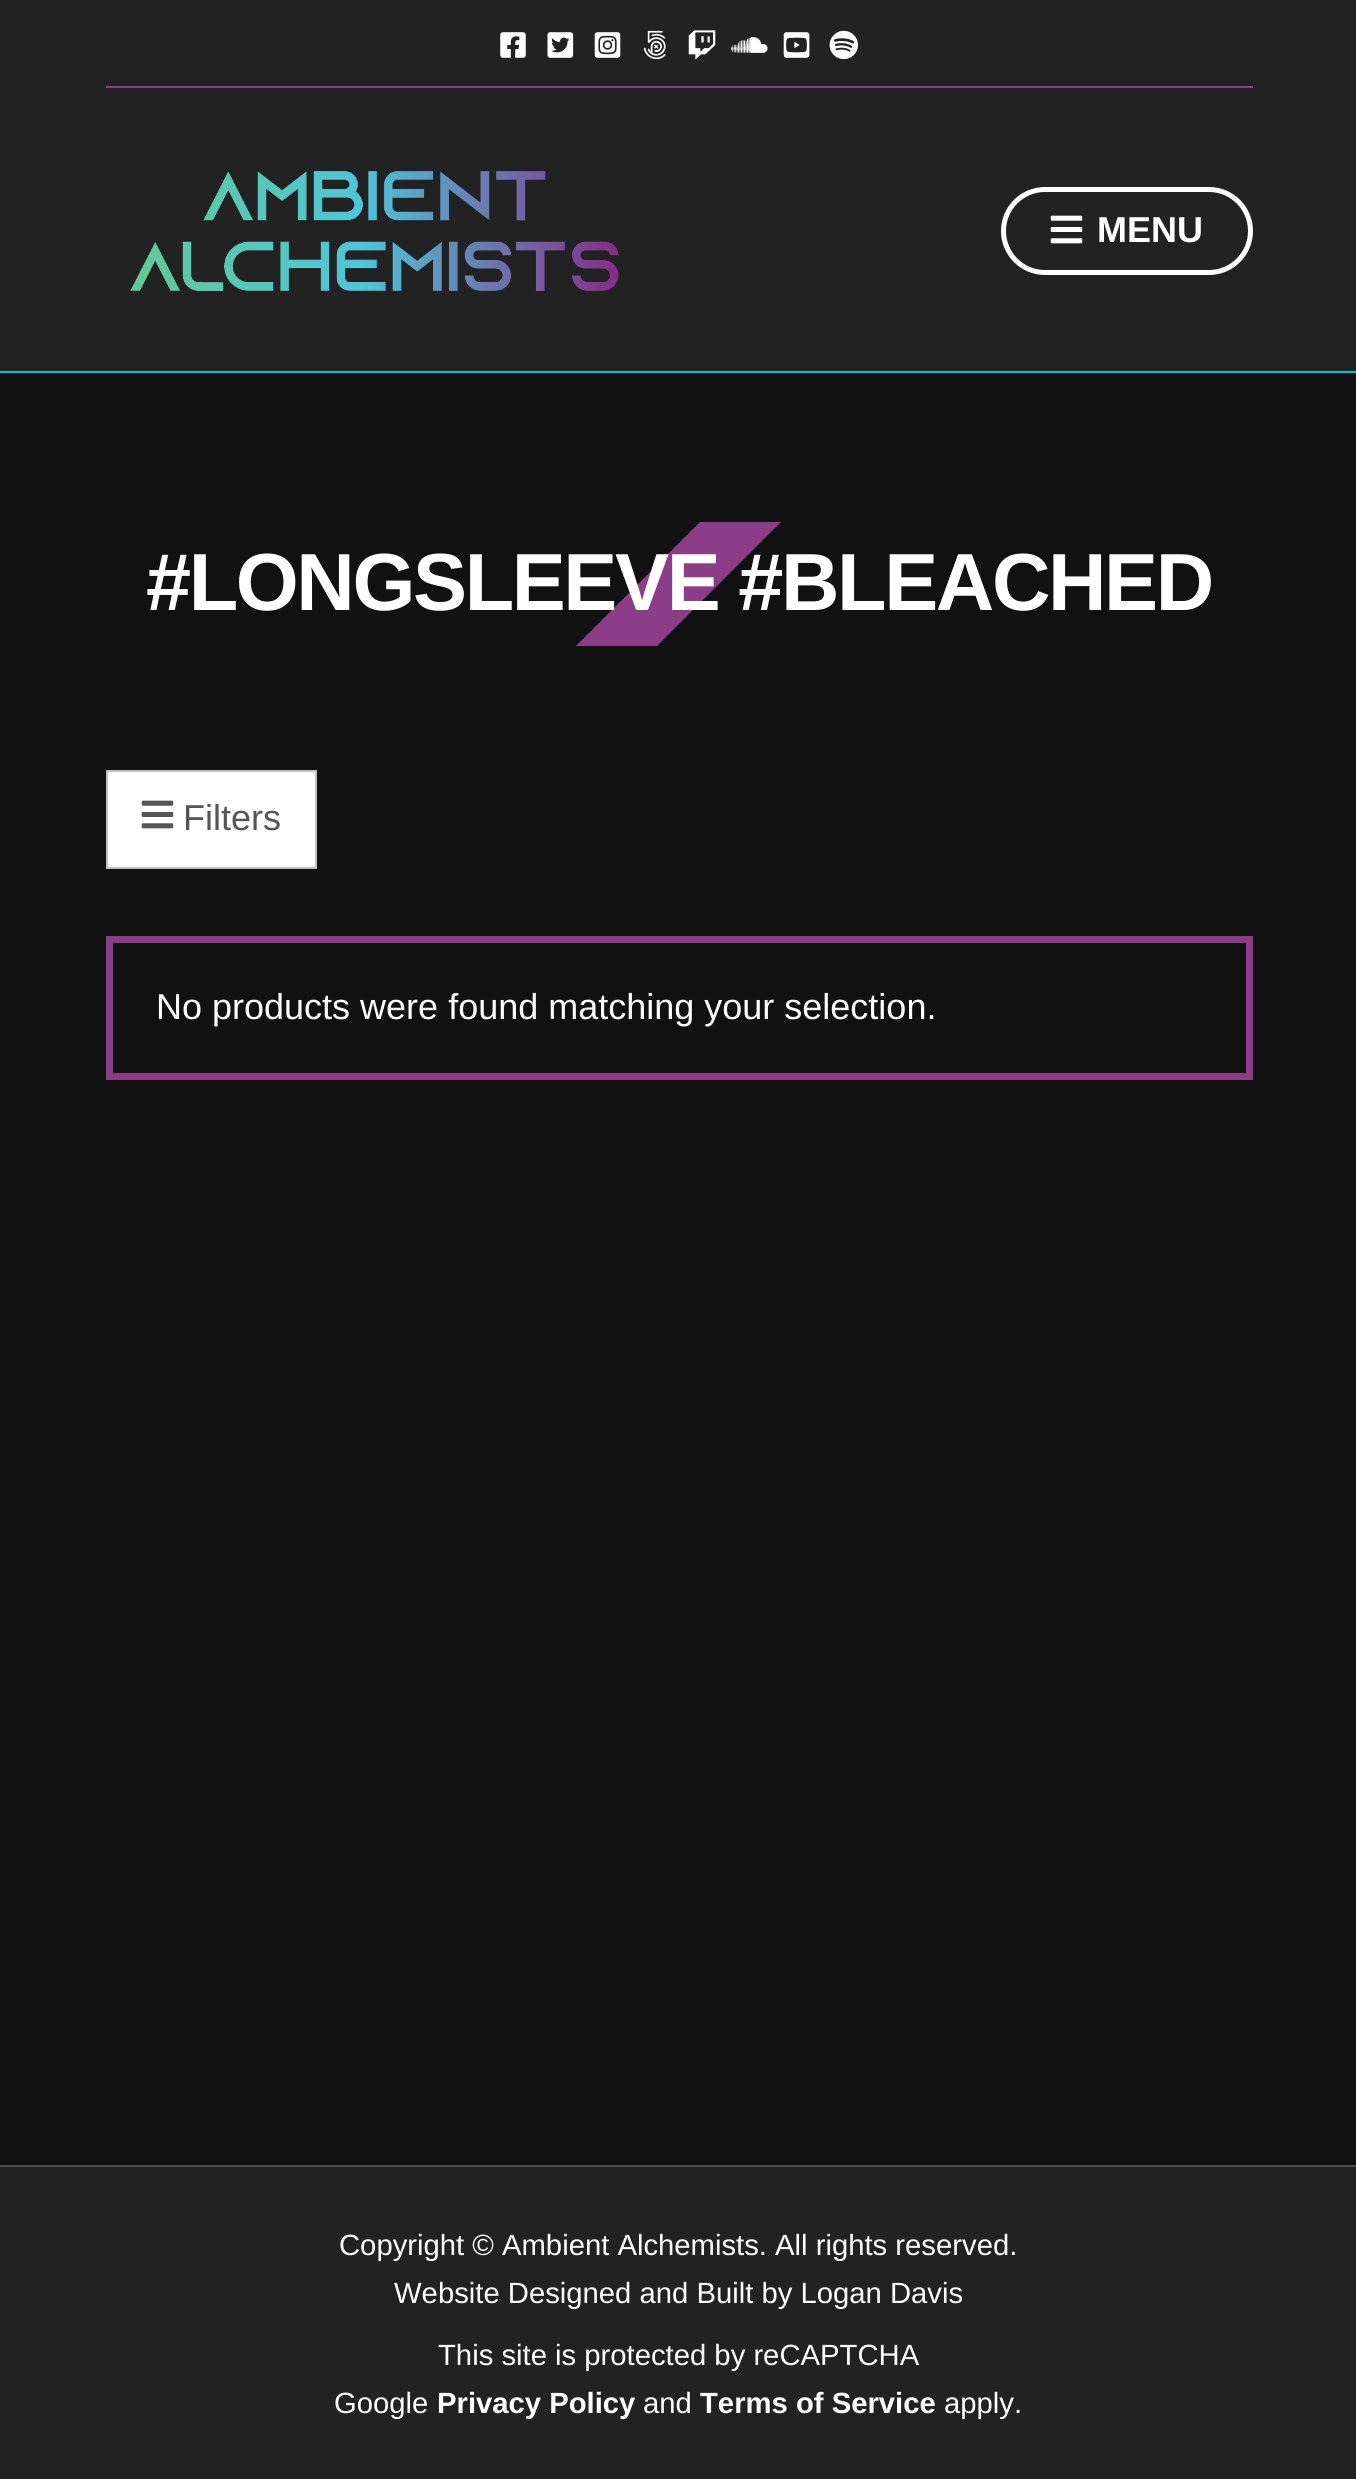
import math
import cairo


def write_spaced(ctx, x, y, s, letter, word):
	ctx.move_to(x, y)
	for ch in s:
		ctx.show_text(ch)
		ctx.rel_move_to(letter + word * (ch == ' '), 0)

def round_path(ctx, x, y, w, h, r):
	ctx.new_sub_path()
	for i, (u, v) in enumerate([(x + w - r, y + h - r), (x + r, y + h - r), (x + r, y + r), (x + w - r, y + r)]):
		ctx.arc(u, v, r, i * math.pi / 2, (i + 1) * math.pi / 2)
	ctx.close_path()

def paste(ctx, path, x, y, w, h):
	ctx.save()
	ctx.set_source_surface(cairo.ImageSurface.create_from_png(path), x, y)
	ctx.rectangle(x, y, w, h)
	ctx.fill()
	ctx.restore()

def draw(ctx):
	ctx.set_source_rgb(0.067, 0.067, 0.067)
	ctx.paint()
	ctx.set_source_rgb(0.133, 0.133, 0.133)
	ctx.rectangle(0, 0, 1356, 374)
	ctx.fill()
	paste(ctx, 'media/1.png', 500, 32, 26, 26)
	paste(ctx, 'media/2.png', 547, 32, 27, 26)
	paste(ctx, 'media/3.png', 594, 32, 27, 26)
	paste(ctx, 'media/4.png', 643, 30, 23, 30)
	paste(ctx, 'media/5.png', 688, 30, 28, 30)
	paste(ctx, 'media/6.png', 731, 37, 37, 16)
	paste(ctx, 'media/7.png', 783, 32, 27, 26)
	paste(ctx, 'media/8.png', 829, 30, 29, 30)
	ctx.set_source_rgb(0.545, 0.243, 0.529)
	ctx.rectangle(106, 86, 1147, 2)
	ctx.fill()
	ctx.set_source_rgb(0.008, 0.753, 0.847)
	ctx.rectangle(0, 371, 1356, 2)
	ctx.fill()
	paste(ctx, 'media/9.png', 130, 171, 489, 120)
	round_path(ctx, 1003.5, 189.5, 247, 83, 41.5)
	ctx.set_source_rgb(1, 1, 1)
	ctx.set_line_width(5)
	ctx.stroke()
	paste(ctx, 'media/10.png', 1050, 215, 33, 29)
	ctx.select_font_face('Liberation Sans', cairo.FONT_SLANT_NORMAL, cairo.FONT_WEIGHT_BOLD)
	ctx.set_font_size(36)
	ctx.move_to(1097, 242)
	ctx.show_text('MENU')
	ctx.set_source_rgb(0.545, 0.243, 0.529)
	ctx.new_path()
	ctx.move_to(700, 522)
	ctx.line_to(781, 522)
	ctx.line_to(657, 646)
	ctx.line_to(576, 646)
	ctx.close_path()
	ctx.fill()
	ctx.set_font_size(81)
	ctx.set_source_rgb(1, 1, 1)
	write_spaced(ctx, 146, 610, '#LONGSLEEVE #BLEACHED', -2.4, 0)
	ctx.rectangle(107, 771, 209, 97)
	ctx.fill_preserve()
	ctx.set_source_rgb(0.757, 0.757, 0.757)
	ctx.set_line_width(2)
	ctx.stroke()
	paste(ctx, 'media/11.png', 141, 800, 33, 29)
	ctx.select_font_face('Liberation Sans')
	ctx.set_font_size(36)
	ctx.set_source_rgb(0.333, 0.333, 0.333)
	ctx.move_to(183, 830)
	ctx.show_text('Filters')
	ctx.rectangle(109.5, 939.5, 1140, 137)
	ctx.set_source_rgb(0.545, 0.243, 0.529)
	ctx.set_line_width(7)
	ctx.stroke()
	ctx.set_source_rgb(1, 1, 1)
	ctx.move_to(156, 1019)
	ctx.show_text('No products were found matching your selection.')
	ctx.set_source_rgb(0.294, 0.294, 0.294)
	ctx.rectangle(0, 2165, 1356, 2)
	ctx.fill()
	ctx.set_source_rgb(0.133, 0.133, 0.133)
	ctx.rectangle(0, 2167, 1356, 312)
	ctx.fill()
	ctx.set_font_size(29.25)
	ctx.set_source_rgb(1, 1, 1)
	for x, y, s in [
		(339, 2255, 'Copyright © Ambient Alchemists. All rights reserved.'),
		(394, 2303, 'Website Designed and Built by Logan Davis'),
		(438, 2365, 'This site is protected by reCAPTCHA'),
		(334, 2413, 'Google'),
	]:
		ctx.move_to(x, y)
		ctx.show_text(s)
	ctx.select_font_face('Liberation Sans', cairo.FONT_SLANT_NORMAL, cairo.FONT_WEIGHT_BOLD)
	ctx.move_to(437, 2413)
	ctx.show_text('Privacy Policy')
	ctx.select_font_face('Liberation Sans')
	ctx.move_to(643, 2413)
	ctx.show_text('and')
	ctx.select_font_face('Liberation Sans', cairo.FONT_SLANT_NORMAL, cairo.FONT_WEIGHT_BOLD)
	ctx.move_to(700, 2413)
	ctx.show_text('Terms of Service')
	ctx.select_font_face('Liberation Sans')
	ctx.move_to(944, 2413)
	ctx.show_text('apply.')


surface = cairo.ImageSurface(cairo.FORMAT_RGB24, 1356, 2479)
ctx = cairo.Context(surface)
options = cairo.FontOptions()
options.set_hint_metrics(cairo.HINT_METRICS_OFF)
options.set_hint_style(cairo.HINT_STYLE_NONE)
ctx.set_font_options(options)
ctx.set_miter_limit(4)
draw(ctx)
surface.write_to_png('image.png')
